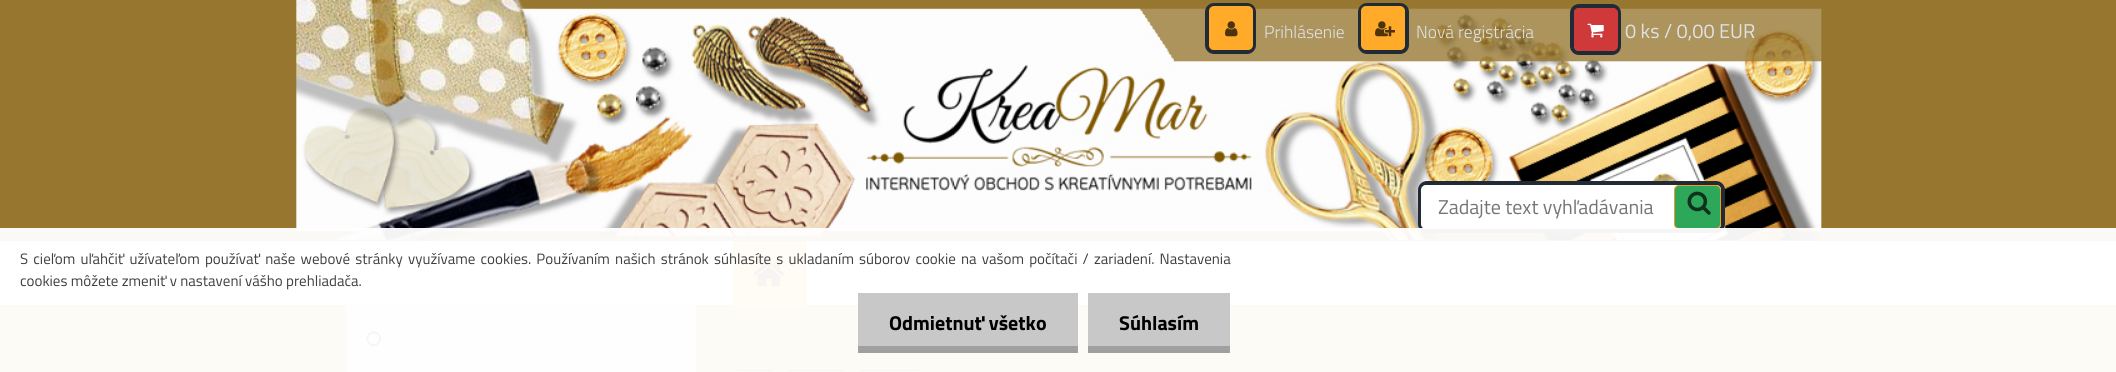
import math
import cairo


def write_spaced(ctx, x, y, s, letter, word):
	ctx.move_to(x, y)
	for ch in s:
		ctx.show_text(ch)
		ctx.rel_move_to(letter + word * (ch == ' '), 0)

def round_path(ctx, x, y, w, h, r):
	ctx.new_sub_path()
	for i, (u, v) in enumerate([(x + w - r, y + h - r), (x + r, y + h - r), (x + r, y + r), (x + w - r, y + r)]):
		ctx.arc(u, v, r, i * math.pi / 2, (i + 1) * math.pi / 2)
	ctx.close_path()

def paste(ctx, path, x, y, w, h):
	ctx.save()
	ctx.set_source_surface(cairo.ImageSurface.create_from_png(path), x, y)
	ctx.rectangle(x, y, w, h)
	ctx.fill()
	ctx.restore()

def draw(ctx):
	ctx.set_source_rgb(0.808, 0.675, 0.153)
	ctx.paint()
	ctx.set_source_rgb(0.592, 0.467, 0.188)
	ctx.rectangle(0, 0, 2116, 241)
	ctx.fill()
	paste(ctx, 'media/6.png', 296, 0, 1526, 241)
	round_path(ctx, 1207, 5, 47, 47, 7)
	ctx.set_source_rgb(0.129, 0.169, 0.208)
	ctx.set_line_width(4)
	ctx.stroke()
	ctx.set_source_rgb(1, 0.667, 0.161)
	round_path(ctx, 1209, 6, 44, 44, 5)
	ctx.fill()
	paste(ctx, 'media/1.png', 1225, 21, 13, 16)
	ctx.select_font_face('Titillium Web Light')
	ctx.set_font_size(17.5)
	ctx.set_source_rgb(0.871, 0.886, 0.902)
	ctx.move_to(1264, 38)
	ctx.show_text('Prihlásenie')
	round_path(ctx, 1360, 5, 47, 47, 7)
	ctx.set_source_rgb(0.129, 0.169, 0.208)
	ctx.stroke()
	ctx.set_source_rgb(1, 0.667, 0.161)
	round_path(ctx, 1361, 6, 44, 44, 5)
	ctx.fill()
	paste(ctx, 'media/2.png', 1375, 21, 20, 16)
	ctx.set_source_rgb(0.871, 0.886, 0.902)
	ctx.move_to(1416, 38)
	ctx.show_text('Nová registrácia')
	round_path(ctx, 1572, 6, 47, 47, 7)
	ctx.set_source_rgb(0.129, 0.169, 0.208)
	ctx.stroke()
	ctx.set_source_rgb(0.812, 0.224, 0.224)
	round_path(ctx, 1574, 8, 44, 43, 5)
	ctx.fill()
	paste(ctx, 'media/3.png', 1587, 23, 17, 15)
	ctx.select_font_face('Titillium Web')
	ctx.set_font_size(20)
	ctx.set_source_rgb(0.871, 0.886, 0.902)
	ctx.move_to(1625, 38)
	ctx.show_text('0 ks / 0,00 EUR')
	ctx.set_source_rgb(0.922, 0.937, 0.953)
	ctx.rectangle(347, 305, 348, 63)
	ctx.rectangle(346, 369, 350, 3)
	ctx.fill()
	ctx.set_source_rgb(0.827, 0.839, 0.855)
	ctx.rectangle(695, 305, 1, 67)
	ctx.rectangle(346, 368, 350, 1)
	ctx.rectangle(346, 305, 1, 67)
	ctx.fill()
	ctx.set_source_rgba(0, 0, 0, 0.1)
	ctx.new_path()
	ctx.move_to(346, 243)
	ctx.line_to(346, 306)
	ctx.line_to(696, 306)
	ctx.line_to(696, 305)
	ctx.line_to(346, 305)
	ctx.close_path()
	ctx.fill()
	ctx.set_source_rgb(1, 1, 1)
	ctx.rectangle(0, 241, 2116, 64)
	ctx.fill()
	ctx.set_source_rgb(0.89, 0.906, 0.922)
	ctx.rectangle(695, 241, 1, 64)
	ctx.rectangle(346, 241, 1, 64)
	ctx.fill()
	paste(ctx, 'media/4.png', 366, 331, 16, 16)
	ctx.set_source_rgb(0.243, 0.204, 0.047)
	ctx.rectangle(738, 370, 35, 1)
	ctx.rectangle(789, 370, 55, 1)
	ctx.rectangle(860, 370, 59, 1)
	ctx.fill()
	ctx.set_source_rgb(1, 0.667, 0.161)
	ctx.rectangle(734, 241, 71, 69)
	ctx.fill()
	ctx.set_source_rgb(0.945, 0.612, 0.106)
	ctx.rectangle(805, 241, 1, 70)
	ctx.rectangle(733, 310, 73, 1)
	ctx.rectangle(733, 241, 1, 70)
	ctx.fill()
	paste(ctx, 'media/5.png', 753, 261, 32, 26)
	round_path(ctx, 1420, 183, 303, 48, 7)
	ctx.set_source_rgb(0.129, 0.169, 0.208)
	ctx.stroke()
	ctx.set_source_rgb(1, 1, 1)
	round_path(ctx, 1421, 185, 300, 44, 5)
	ctx.fill()
	ctx.set_source_rgb(0.459, 0.459, 0.459)
	ctx.move_to(1438, 214)
	ctx.show_text('Zadajte text vyhľadávania')
	ctx.set_source_rgb(0.176, 0.655, 0.349)
	round_path(ctx, 1674.5, 185.5, 46, 43, 4.5)
	ctx.fill_preserve()
	ctx.set_source_rgb(0.945, 0.612, 0.106)
	ctx.set_line_width(1)
	ctx.stroke()
	paste(ctx, 'media/7.png', 1687, 191, 24, 24)
	ctx.set_source_rgba(1, 1, 1, 0.95)
	ctx.rectangle(0, 228, 2116, 144)
	ctx.fill()
	ctx.set_font_size(15)
	ctx.set_source_rgb(0.247, 0.247, 0.247)
	write_spaced(ctx, 20, 264, 'S cieľom uľahčiť užívateľom používať naše webové stránky využívame cookies. Používaním našich stránok súhlasíte s ukladaním súborov cookie na vašom počítači / zariadení. Nastavenia', 0, 1.9)
	ctx.move_to(20, 286)
	ctx.show_text('cookies môžete zmeniť v nastavení vášho prehliadača.')
	ctx.set_source_rgb(0.784, 0.784, 0.784)
	ctx.rectangle(858, 293, 220, 53)
	ctx.fill()
	ctx.set_source_rgb(0.627, 0.627, 0.627)
	ctx.rectangle(858, 346, 220, 7)
	ctx.fill()
	ctx.select_font_face('Titillium Web', cairo.FONT_SLANT_NORMAL, cairo.FONT_WEIGHT_BOLD)
	ctx.set_font_size(20)
	ctx.set_source_rgb(0, 0, 0)
	ctx.move_to(889, 330)
	ctx.show_text('Odmietnuť všetko')
	ctx.set_source_rgb(0.784, 0.784, 0.784)
	ctx.rectangle(1088, 293, 142, 53)
	ctx.fill()
	ctx.set_source_rgb(0.627, 0.627, 0.627)
	ctx.rectangle(1088, 346, 142, 7)
	ctx.fill()
	ctx.set_source_rgb(0, 0, 0)
	ctx.move_to(1119, 330)
	ctx.show_text('Súhlasím')


surface = cairo.ImageSurface(cairo.FORMAT_RGB24, 2116, 372)
ctx = cairo.Context(surface)
options = cairo.FontOptions()
options.set_hint_metrics(cairo.HINT_METRICS_OFF)
options.set_hint_style(cairo.HINT_STYLE_NONE)
ctx.set_font_options(options)
ctx.set_miter_limit(4)
draw(ctx)
surface.write_to_png('image.png')
